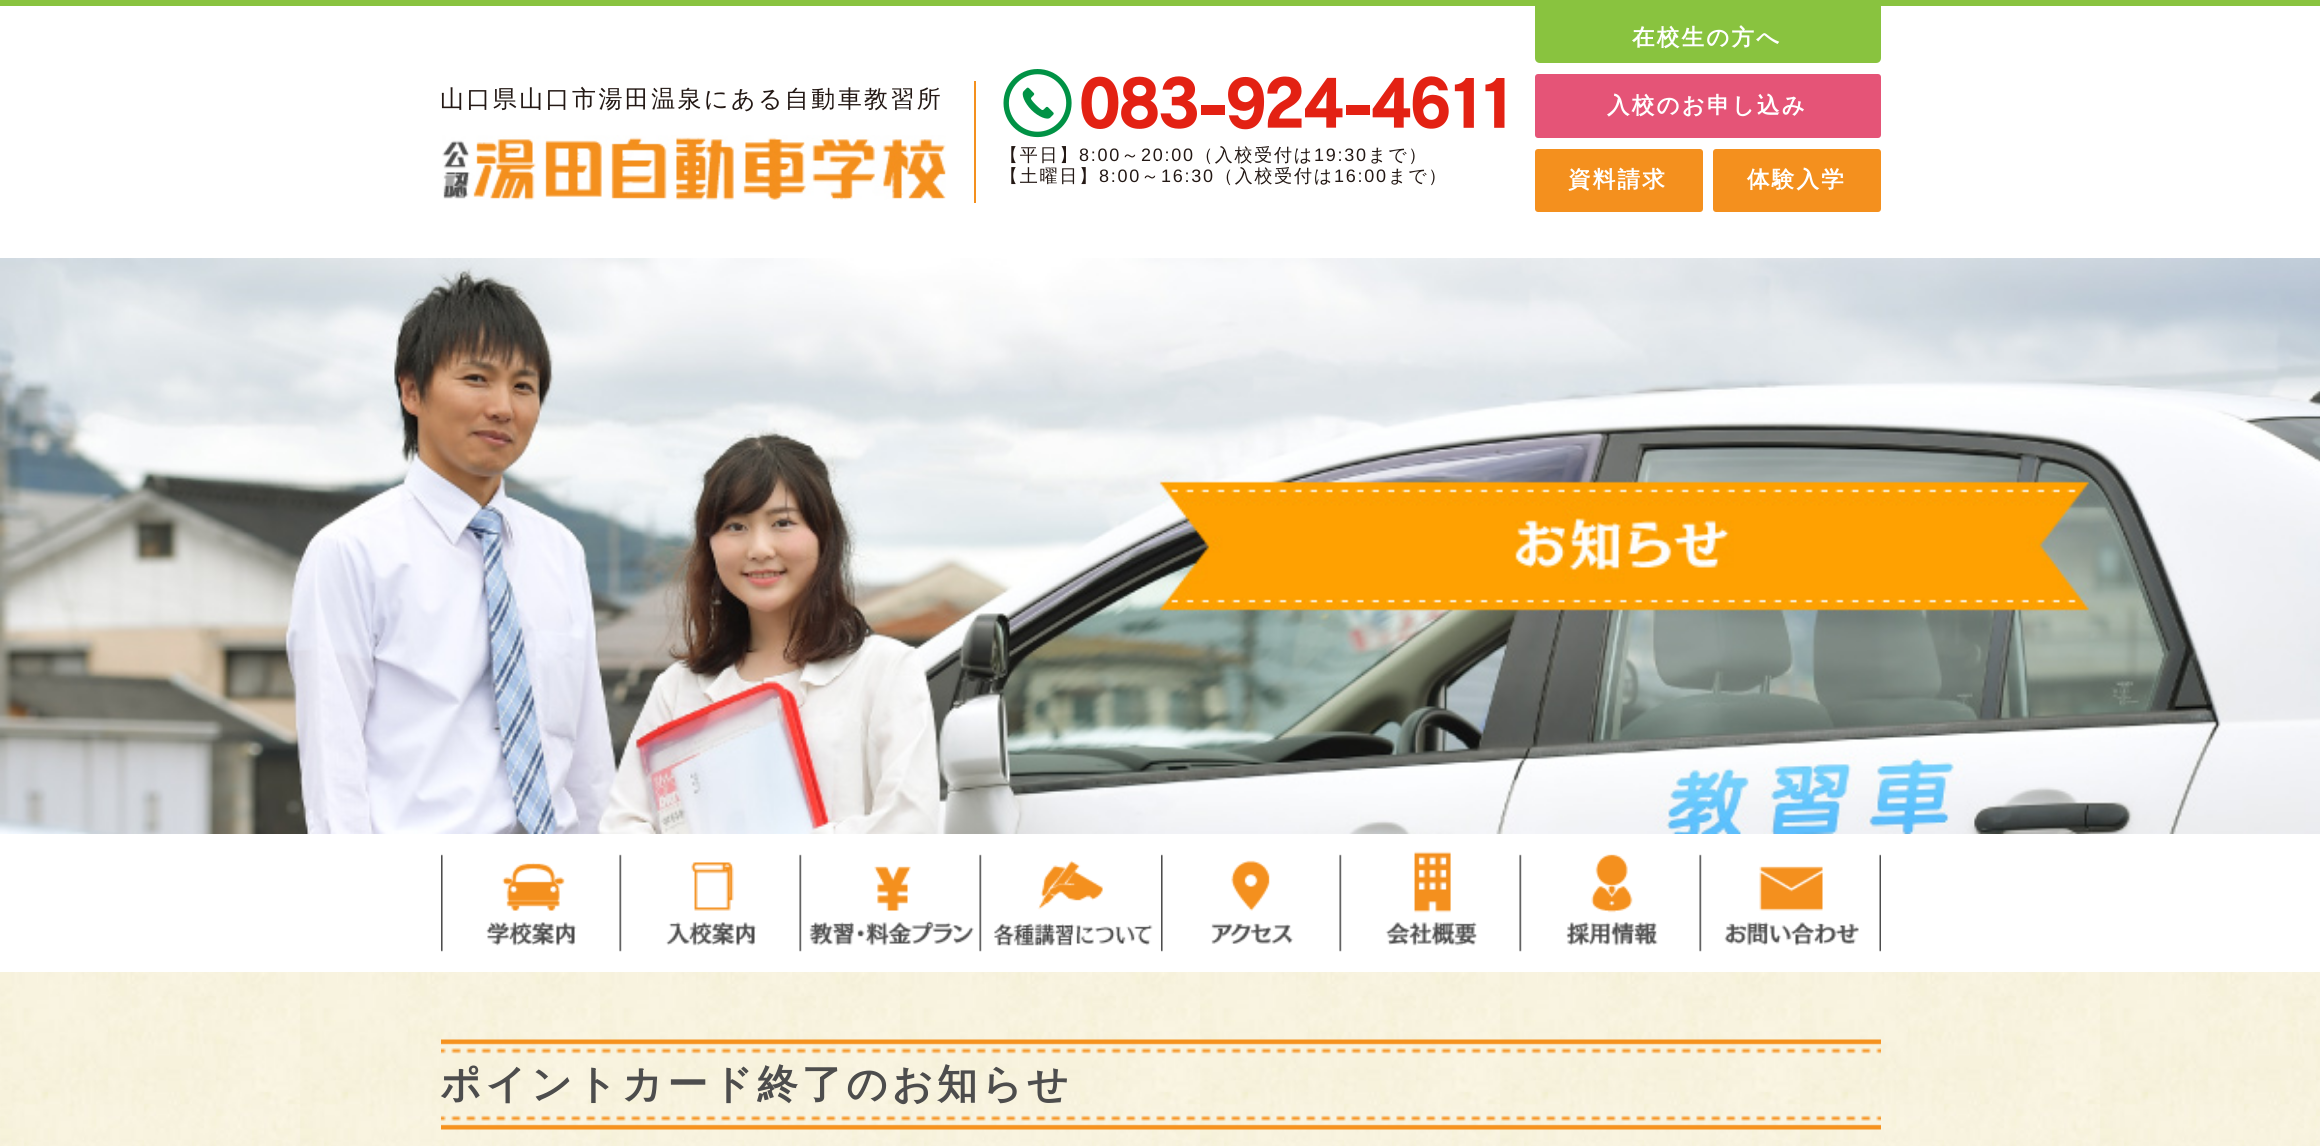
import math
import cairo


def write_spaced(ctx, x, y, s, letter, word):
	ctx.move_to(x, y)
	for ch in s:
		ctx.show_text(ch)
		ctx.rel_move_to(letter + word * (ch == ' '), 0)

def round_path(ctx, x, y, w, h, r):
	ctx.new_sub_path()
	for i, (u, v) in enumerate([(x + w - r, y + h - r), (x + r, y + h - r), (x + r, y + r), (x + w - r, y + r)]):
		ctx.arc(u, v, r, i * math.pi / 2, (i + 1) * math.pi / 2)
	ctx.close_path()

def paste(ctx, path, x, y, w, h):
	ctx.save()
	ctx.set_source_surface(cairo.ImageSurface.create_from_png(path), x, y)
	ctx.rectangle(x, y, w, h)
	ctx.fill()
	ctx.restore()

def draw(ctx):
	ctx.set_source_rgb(1, 1, 1)
	ctx.paint()
	ctx.set_source_rgb(0.537, 0.765, 0.247)
	ctx.rectangle(0, 0, 2320, 6)
	ctx.fill()
	ctx.set_source_rgb(0.957, 0.565, 0.118)
	ctx.rectangle(974, 81, 2, 122)
	ctx.fill()
	ctx.select_font_face('WenQuanYi Zen Hei Medium')
	ctx.set_font_size(24)
	ctx.set_source_rgb(0.137, 0.094, 0.082)
	write_spaced(ctx, 440, 107, '山口県山口市湯田温泉にある自動車教習所', 2.4, 0)
	paste(ctx, 'media/1.png', 442, 135, 504, 65)
	ctx.set_source_rgb(0.537, 0.765, 0.247)
	ctx.new_path()
	ctx.move_to(1535, 6)
	ctx.line_to(1881, 6)
	ctx.line_to(1881, 58)
	ctx.curve_to(1881, 61, 1879, 63, 1876, 63)
	ctx.line_to(1540, 63)
	ctx.curve_to(1537, 63, 1535, 61, 1535, 58)
	ctx.close_path()
	ctx.fill()
	ctx.select_font_face('WenQuanYi Zen Hei', cairo.FONT_SLANT_NORMAL, cairo.FONT_WEIGHT_BOLD)
	ctx.set_font_size(22.5)
	ctx.set_source_rgb(1, 1, 1)
	write_spaced(ctx, 1632, 45, '在校生の方へ', 2.25, 0)
	ctx.set_source_rgb(0.898, 0.329, 0.467)
	round_path(ctx, 1535, 74, 346, 64, 3)
	ctx.fill()
	ctx.set_source_rgb(1, 1, 1)
	write_spaced(ctx, 1607, 113, '入校のお申し込み', 2.25, 0)
	ctx.set_source_rgb(0.957, 0.565, 0.118)
	round_path(ctx, 1535, 149, 168, 63, 3)
	ctx.fill()
	ctx.set_source_rgb(1, 1, 1)
	write_spaced(ctx, 1568, 187, '資料請求', 2.25, 0)
	ctx.set_source_rgb(0.957, 0.565, 0.118)
	round_path(ctx, 1713, 149, 168, 63, 3)
	ctx.fill()
	ctx.set_source_rgb(1, 1, 1)
	write_spaced(ctx, 1747, 187, '体験入学', 2.25, 0)
	paste(ctx, 'media/2.png', 1003, 69, 502, 69)
	ctx.select_font_face('WenQuanYi Zen Hei Medium')
	ctx.set_font_size(18)
	ctx.set_source_rgb(0.137, 0.094, 0.082)
	write_spaced(ctx, 1000, 161, '【平日】', 1.75, 0)
	ctx.select_font_face('Liberation Sans')
	write_spaced(ctx, 1079, 161, '8:00', 1.75, 0)
	ctx.select_font_face('WenQuanYi Zen Hei Medium')
	write_spaced(ctx, 1121, 161, '～', 1.75, 0)
	ctx.select_font_face('Liberation Sans')
	write_spaced(ctx, 1141, 161, '20:00', 1.75, 0)
	ctx.select_font_face('WenQuanYi Zen Hei Medium')
	write_spaced(ctx, 1195, 161, '（入校受付は', 1.75, 0)
	ctx.select_font_face('Liberation Sans')
	write_spaced(ctx, 1314, 161, '19:30', 1.75, 0)
	ctx.select_font_face('WenQuanYi Zen Hei Medium')
	write_spaced(ctx, 1368, 161, 'まで）', 1.75, 0)
	write_spaced(ctx, 1000, 182, '【土曜日】', 1.75, 0)
	ctx.select_font_face('Liberation Sans')
	write_spaced(ctx, 1099, 182, '8:00', 1.75, 0)
	ctx.select_font_face('WenQuanYi Zen Hei Medium')
	write_spaced(ctx, 1141, 182, '～', 1.75, 0)
	ctx.select_font_face('Liberation Sans')
	write_spaced(ctx, 1161, 182, '16:30', 1.75, 0)
	ctx.select_font_face('WenQuanYi Zen Hei Medium')
	write_spaced(ctx, 1215, 182, '（入校受付は', 1.75, 0)
	ctx.select_font_face('Liberation Sans')
	write_spaced(ctx, 1334, 182, '16:00', 1.75, 0)
	ctx.select_font_face('WenQuanYi Zen Hei Medium')
	write_spaced(ctx, 1388, 182, 'まで）', 1.75, 0)
	paste(ctx, 'media/3.png', 0, 258, 2320, 576)
	paste(ctx, 'media/4.png', 441, 854, 136, 98)
	paste(ctx, 'media/5.png', 619, 854, 138, 98)
	paste(ctx, 'media/6.png', 799, 854, 175, 98)
	paste(ctx, 'media/7.png', 979, 854, 174, 98)
	paste(ctx, 'media/8.png', 1161, 854, 133, 98)
	paste(ctx, 'media/9.png', 1339, 851, 139, 101)
	paste(ctx, 'media/10.png', 1519, 854, 139, 98)
	paste(ctx, 'media/11.png', 1699, 854, 182, 98)
	paste(ctx, 'media/12.png', 0, 972, 2320, 174)
	paste(ctx, 'media/13.png', 441, 1039, 1440, 91)
	ctx.select_font_face('WenQuanYi Zen Hei', cairo.FONT_SLANT_NORMAL, cairo.FONT_WEIGHT_BOLD)
	ctx.set_font_size(40.5)
	ctx.set_source_rgb(0.302, 0.302, 0.302)
	write_spaced(ctx, 440, 1098, 'ポイントカード終了のお知らせ', 4, 0)


surface = cairo.ImageSurface(cairo.FORMAT_RGB24, 2320, 1146)
ctx = cairo.Context(surface)
options = cairo.FontOptions()
options.set_hint_metrics(cairo.HINT_METRICS_OFF)
options.set_hint_style(cairo.HINT_STYLE_NONE)
ctx.set_font_options(options)
ctx.set_miter_limit(4)
draw(ctx)
surface.write_to_png('image.png')
